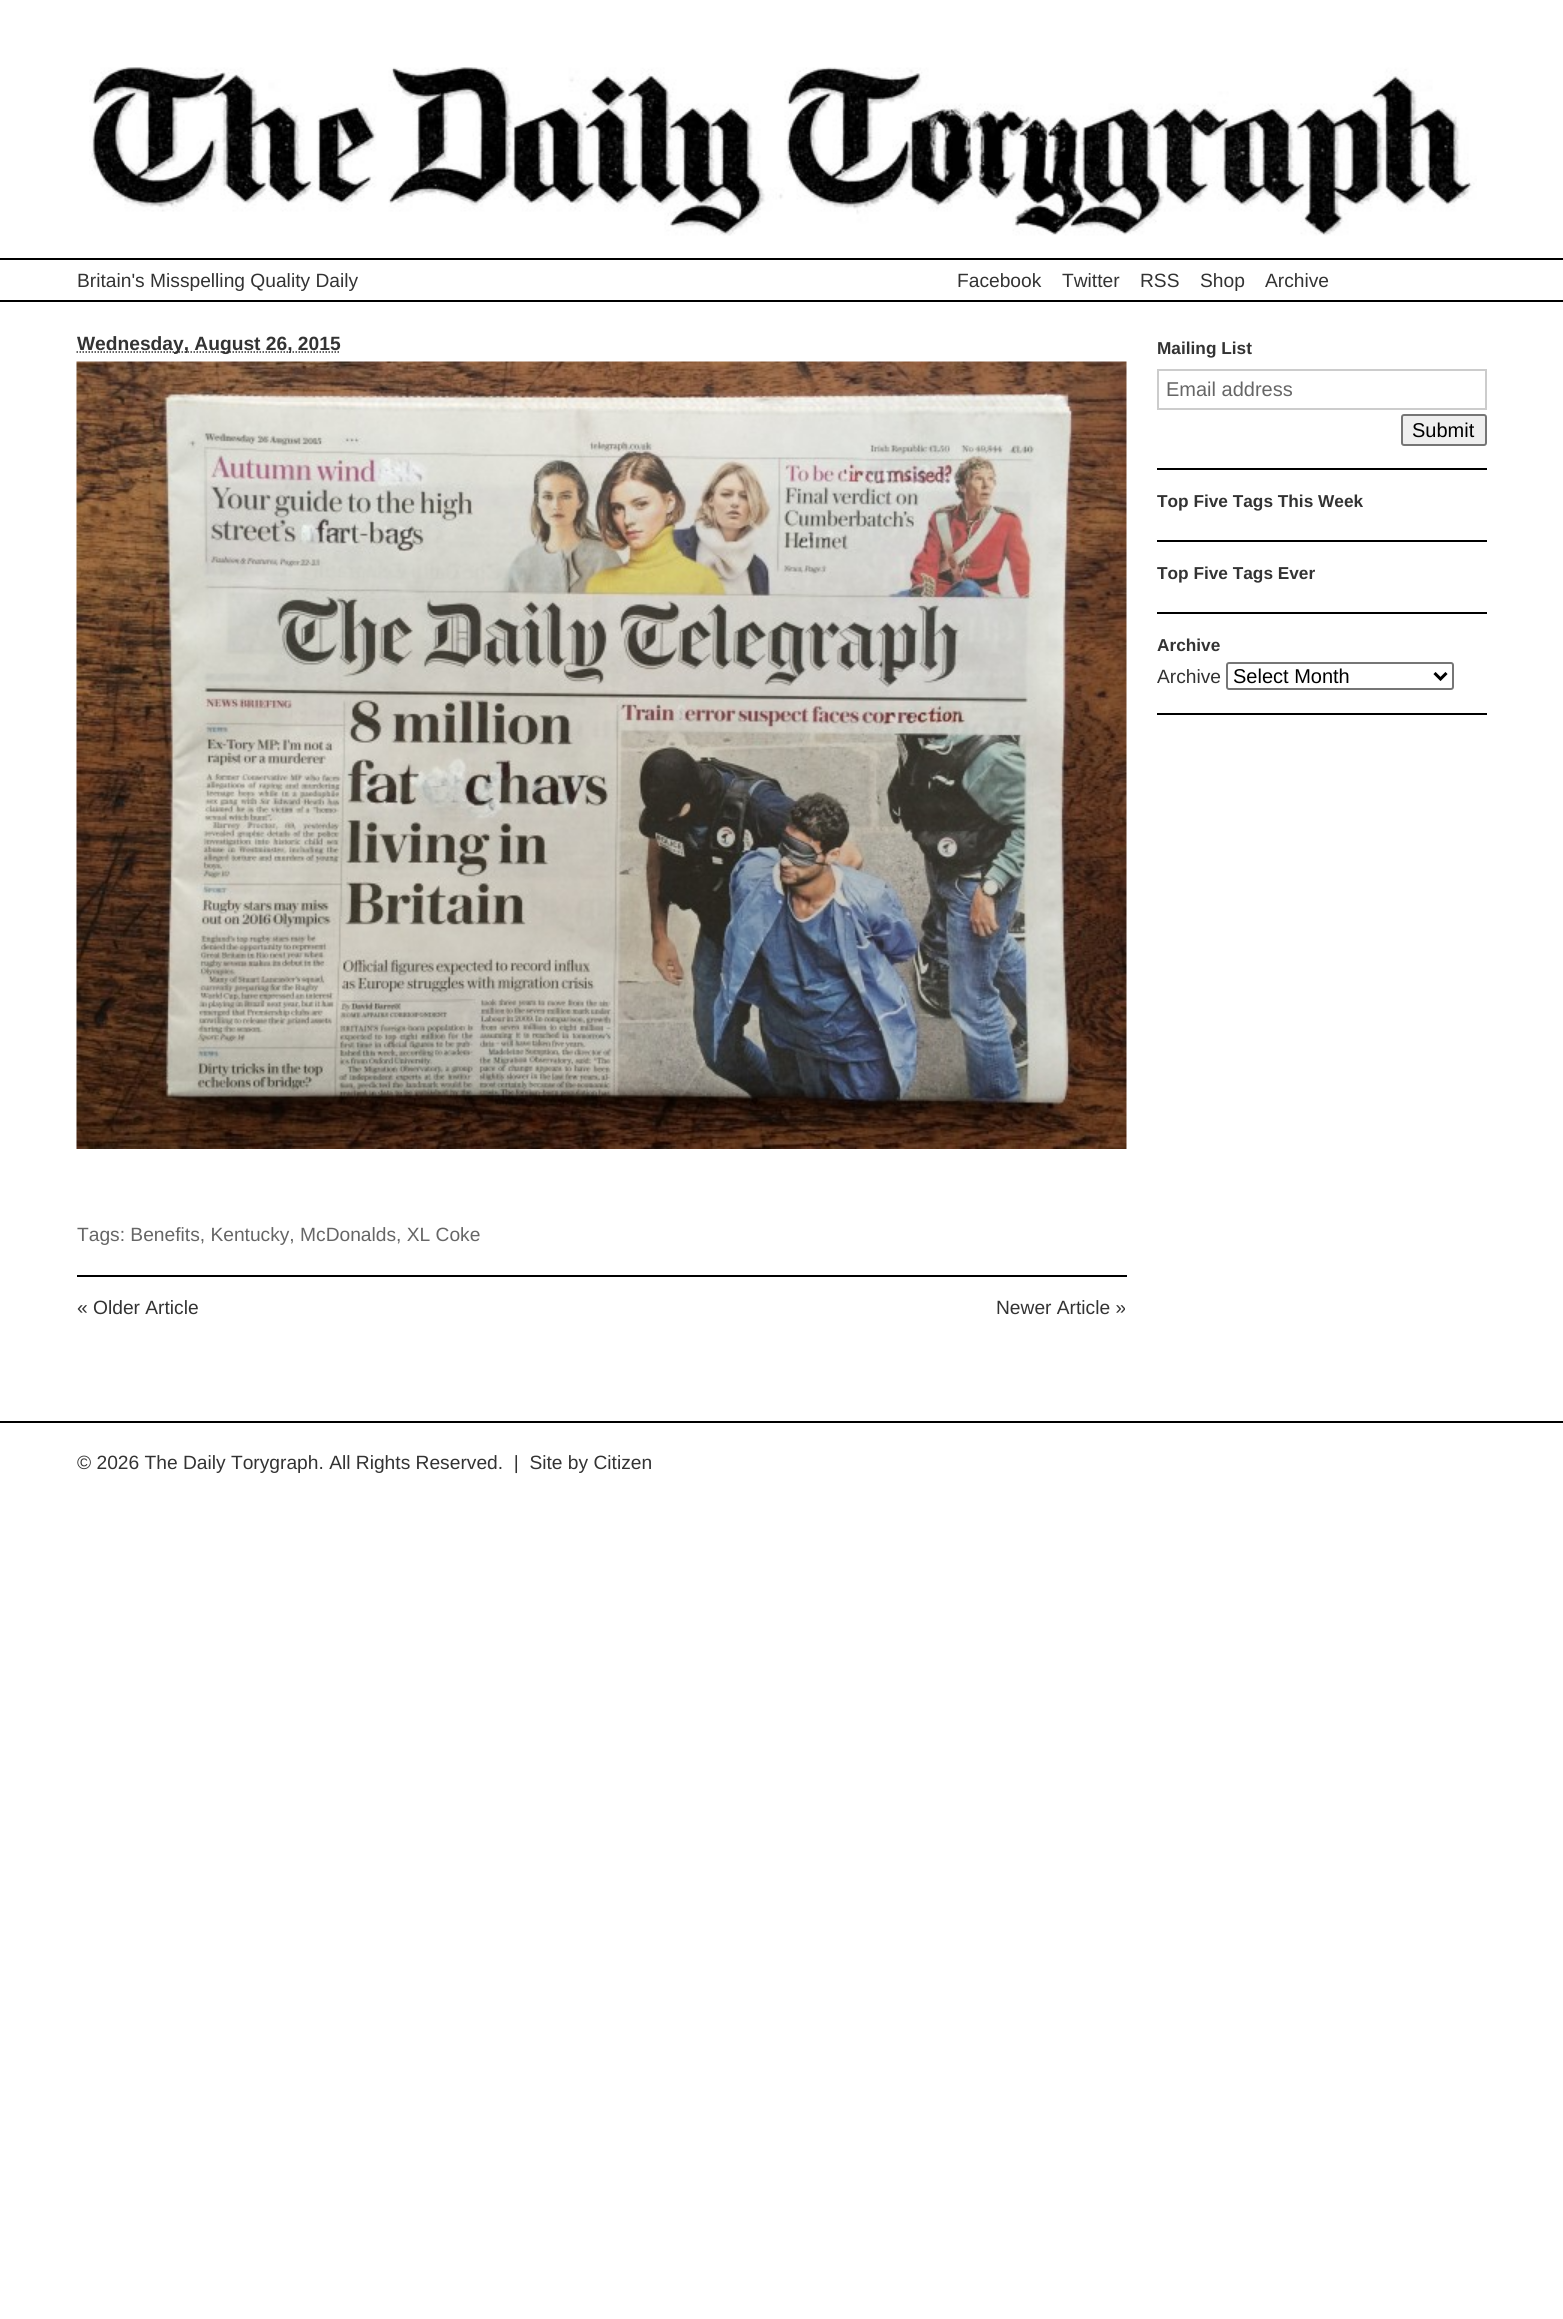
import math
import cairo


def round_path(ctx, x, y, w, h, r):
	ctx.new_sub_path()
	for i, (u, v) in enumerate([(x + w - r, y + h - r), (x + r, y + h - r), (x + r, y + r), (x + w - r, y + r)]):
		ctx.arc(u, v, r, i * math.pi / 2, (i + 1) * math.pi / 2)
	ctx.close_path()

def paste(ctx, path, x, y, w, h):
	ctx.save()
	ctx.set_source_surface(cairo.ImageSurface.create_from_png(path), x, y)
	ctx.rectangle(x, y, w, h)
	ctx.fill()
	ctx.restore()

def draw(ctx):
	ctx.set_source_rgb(1, 1, 1)
	ctx.paint()
	ctx.set_source_rgb(0, 0, 0)
	ctx.rectangle(0, 300, 1563, 2)
	ctx.fill()
	paste(ctx, 'media/1.png', 89, 67, 1388, 169)
	ctx.rectangle(0, 258, 1563, 2)
	ctx.fill()
	ctx.select_font_face('Liberation Sans')
	ctx.set_font_size(19.2)
	ctx.set_source_rgb(0.2, 0.2, 0.2)
	for x, y, s in [
		(77, 287, 'Britain\'s Misspelling Quality Daily'),
		(957, 287, 'Facebook'),
		(1062, 287, 'Twitter'),
		(1140, 287, 'RSS'),
		(1200, 287, 'Shop'),
		(1265, 287, 'Archive'),
	]:
		ctx.move_to(x, y)
		ctx.show_text(s)
	ctx.set_source_rgb(0, 0, 0)
	ctx.rectangle(77, 1275, 1050, 2)
	ctx.fill()
	ctx.new_path()
	ctx.move_to(76.5, 352)
	ctx.line_to(340, 352)
	ctx.set_source_rgb(0.2, 0.2, 0.2)
	ctx.set_line_width(1.5)
	ctx.set_dash([1.5, 1.5])
	ctx.stroke()
	ctx.select_font_face('Liberation Sans', cairo.FONT_SLANT_NORMAL, cairo.FONT_WEIGHT_BOLD)
	ctx.move_to(77, 350)
	ctx.show_text('Wednesday, August 26, 2015')
	paste(ctx, 'media/2.png', 76, 361, 1051, 788)
	ctx.select_font_face('Liberation Sans')
	ctx.set_source_rgb(0.4, 0.4, 0.4)
	ctx.move_to(77, 1241)
	ctx.show_text('Tags: Benefits, Kentucky, McDonalds, XL Coke')
	ctx.set_source_rgb(0.2, 0.2, 0.2)
	ctx.move_to(77, 1314)
	ctx.show_text('« Older Article')
	ctx.move_to(996, 1314)
	ctx.show_text('Newer Article »')
	ctx.set_source_rgb(0, 0, 0)
	ctx.rectangle(1157, 468, 330, 2)
	ctx.fill()
	ctx.select_font_face('Liberation Sans', cairo.FONT_SLANT_NORMAL, cairo.FONT_WEIGHT_BOLD)
	ctx.set_font_size(17.25)
	ctx.set_source_rgb(0.2, 0.2, 0.2)
	ctx.move_to(1157, 354)
	ctx.show_text('Mailing List')
	ctx.rectangle(1158, 370, 328, 39)
	ctx.set_source_rgb(0.8, 0.8, 0.8)
	ctx.set_line_width(2)
	ctx.set_dash([])
	ctx.stroke()
	ctx.select_font_face('Liberation Sans')
	ctx.set_font_size(20)
	ctx.set_source_rgb(0.4, 0.4, 0.4)
	ctx.move_to(1166, 396)
	ctx.show_text('Email address')
	ctx.set_source_rgb(0.937, 0.937, 0.937)
	round_path(ctx, 1402, 415, 84, 30, 2)
	ctx.fill_preserve()
	ctx.set_source_rgb(0.463, 0.463, 0.463)
	ctx.stroke()
	ctx.set_source_rgb(0, 0, 0)
	ctx.move_to(1412, 437)
	ctx.show_text('Submit')
	ctx.rectangle(1157, 540, 330, 2)
	ctx.fill()
	ctx.select_font_face('Liberation Sans', cairo.FONT_SLANT_NORMAL, cairo.FONT_WEIGHT_BOLD)
	ctx.set_font_size(17.25)
	ctx.set_source_rgb(0.2, 0.2, 0.2)
	ctx.move_to(1157, 507)
	ctx.show_text('Top Five Tags This Week')
	ctx.set_source_rgb(0, 0, 0)
	ctx.rectangle(1157, 612, 330, 2)
	ctx.fill()
	ctx.set_source_rgb(0.2, 0.2, 0.2)
	ctx.move_to(1157, 579)
	ctx.show_text('Top Five Tags Ever')
	ctx.set_source_rgb(0, 0, 0)
	ctx.rectangle(1157, 713, 330, 2)
	ctx.fill()
	ctx.set_source_rgb(0.2, 0.2, 0.2)
	ctx.move_to(1157, 651)
	ctx.show_text('Archive')
	ctx.select_font_face('Liberation Sans')
	ctx.set_font_size(19.2)
	ctx.move_to(1157, 683)
	ctx.show_text('Archive')
	round_path(ctx, 1227, 663, 226, 26, 2)
	ctx.set_source_rgb(0.463, 0.463, 0.463)
	ctx.stroke()
	ctx.new_path()
	ctx.move_to(1434.5, 673)
	ctx.line_to(1440.5, 679)
	ctx.line_to(1446.5, 673)
	ctx.set_source_rgb(0, 0, 0)
	ctx.set_line_width(3)
	ctx.stroke()
	ctx.set_font_size(20)
	ctx.move_to(1233, 683)
	ctx.show_text('Select Month')
	ctx.rectangle(0, 1421, 1563, 2)
	ctx.fill()
	ctx.set_font_size(19.2)
	ctx.set_source_rgb(0.2, 0.2, 0.2)
	ctx.move_to(77, 1469)
	ctx.show_text('© 2026 The Daily Torygraph. All Rights Reserved.  |  Site by Citizen')


surface = cairo.ImageSurface(cairo.FORMAT_RGB24, 1563, 2319)
ctx = cairo.Context(surface)
options = cairo.FontOptions()
options.set_hint_metrics(cairo.HINT_METRICS_OFF)
options.set_hint_style(cairo.HINT_STYLE_NONE)
ctx.set_font_options(options)
ctx.set_miter_limit(4)
draw(ctx)
surface.write_to_png('image.png')
